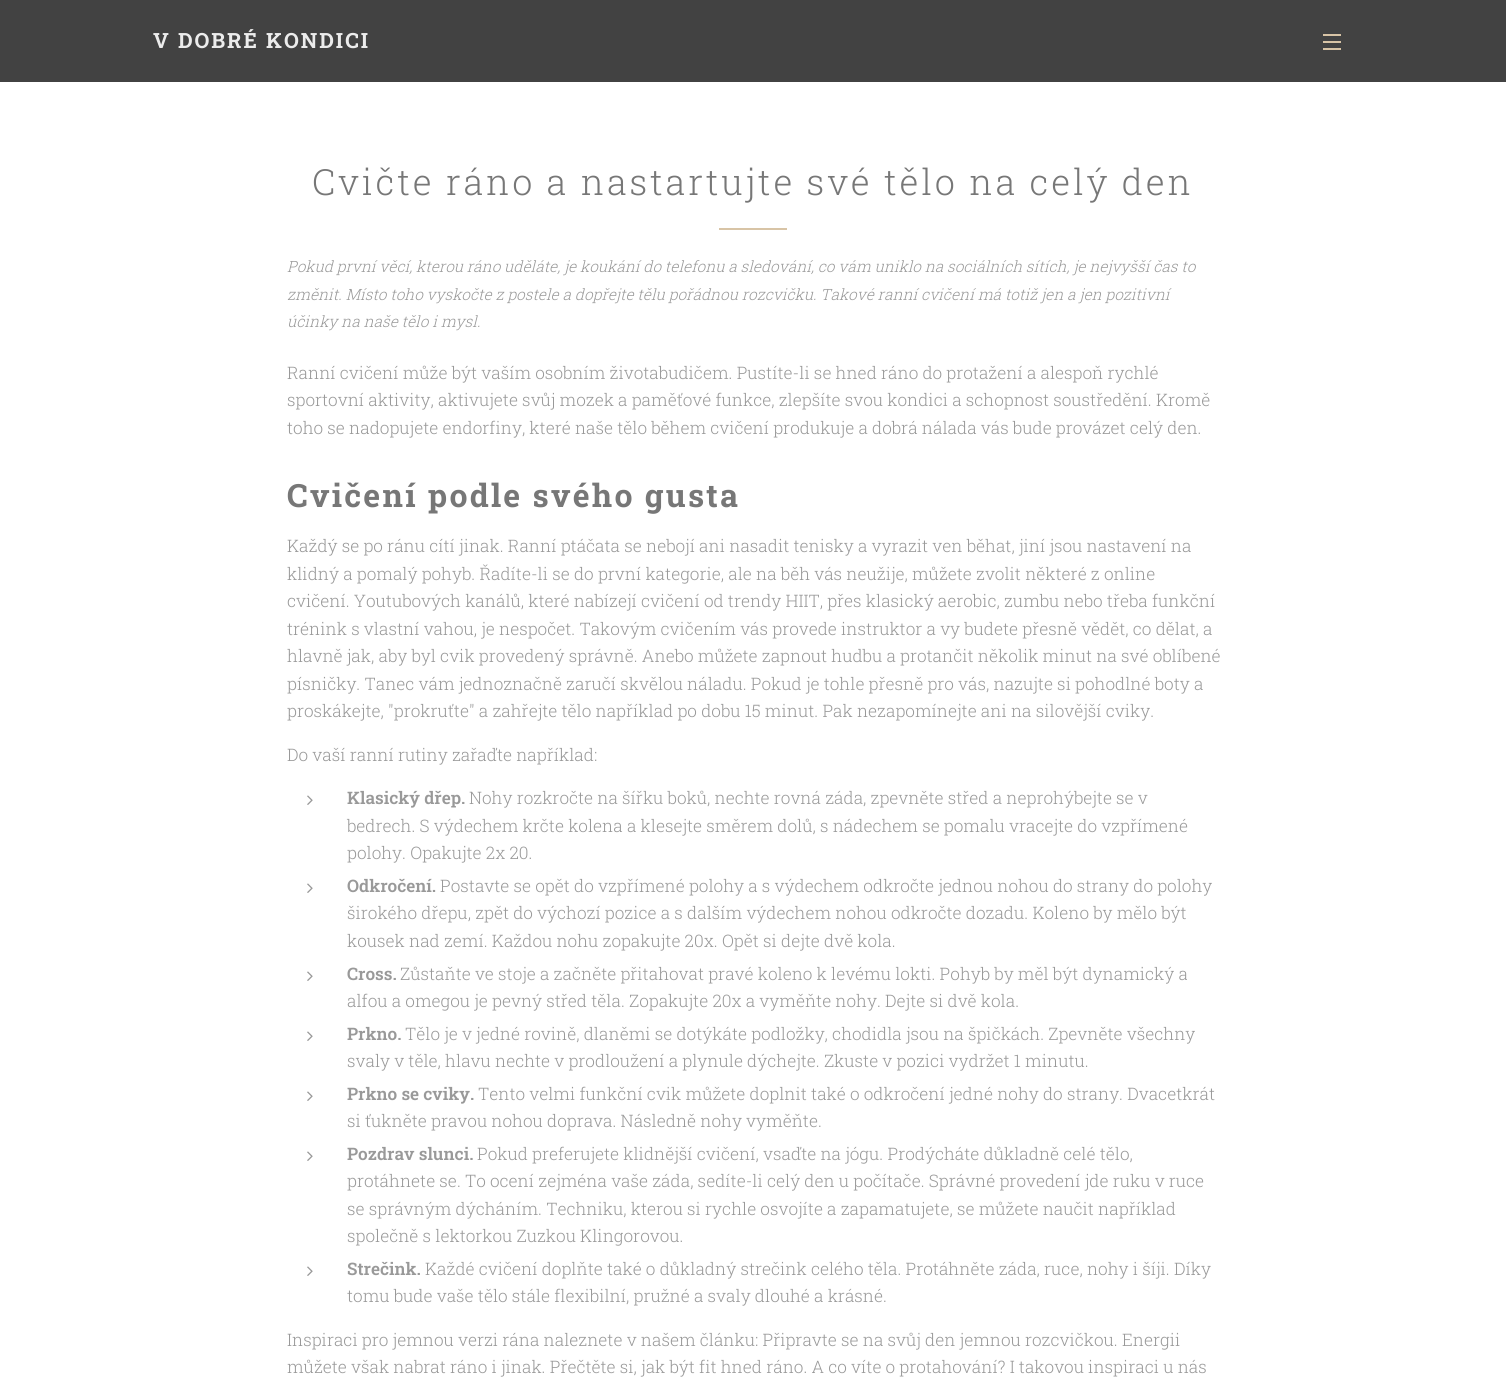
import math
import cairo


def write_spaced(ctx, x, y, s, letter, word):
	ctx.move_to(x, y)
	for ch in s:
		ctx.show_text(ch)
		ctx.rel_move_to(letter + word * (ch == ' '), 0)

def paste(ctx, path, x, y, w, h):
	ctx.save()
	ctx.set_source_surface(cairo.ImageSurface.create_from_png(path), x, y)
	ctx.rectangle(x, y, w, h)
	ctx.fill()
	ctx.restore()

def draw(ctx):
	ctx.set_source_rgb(1, 1, 1)
	ctx.paint()
	ctx.set_source_rgb(0.259, 0.259, 0.259)
	ctx.rectangle(0, 0, 1506, 82)
	ctx.fill()
	ctx.select_font_face('Roboto Slab', cairo.FONT_SLANT_NORMAL, cairo.FONT_WEIGHT_BOLD)
	ctx.set_font_size(21)
	ctx.set_source_rgb(0.925, 0.925, 0.925)
	write_spaced(ctx, 153, 48, 'V DOBRÉ KONDICI', 2, 0)
	ctx.set_source_rgb(0.847, 0.769, 0.651)
	ctx.rectangle(1323, 41, 18, 2)
	ctx.rectangle(1323, 34, 18, 2)
	ctx.rectangle(1323, 48, 18, 2)
	ctx.fill()
	ctx.select_font_face('Roboto Slab Light')
	ctx.set_font_size(36)
	ctx.set_source_rgb(0.467, 0.467, 0.467)
	write_spaced(ctx, 312, 195, 'Cvičte ráno a nastartujte své tělo na celý den', 2.8, 0)
	ctx.set_source_rgb(0.847, 0.769, 0.651)
	ctx.rectangle(719, 228, 68, 2)
	ctx.fill()
	ctx.select_font_face('Roboto Slab Light', cairo.FONT_SLANT_ITALIC)
	ctx.set_font_size(15.48)
	ctx.set_source_rgb(0.6, 0.6, 0.6)
	for x, y, s in [
		(287, 272, 'Pokud první věcí, kterou ráno uděláte, je koukání do telefonu a sledování, co vám uniklo na sociálních sítích, je nejvyšší čas to'),
		(287, 300, 'změnit. Místo toho vyskočte z postele a dopřejte tělu pořádnou rozcvičku. Takové ranní cvičení má totiž jen a jen pozitivní'),
		(287, 327, 'účinky na naše tělo i mysl.'),
	]:
		ctx.move_to(x, y)
		ctx.show_text(s)
	ctx.select_font_face('Roboto Slab Light')
	ctx.set_font_size(17.2)
	for x, y, s in [
		(287, 379, 'Ranní cvičení může být vaším osobním životabudičem. Pustíte-li se hned ráno do protažení a alespoň rychlé'),
		(287, 406, 'sportovní aktivity, aktivujete svůj mozek a paměťové funkce, zlepšíte svou kondici a schopnost soustředění. Kromě'),
		(287, 434, 'toho se nadopujete endorfiny, které naše tělo během cvičení produkuje a dobrá nálada vás bude provázet celý den.'),
	]:
		ctx.move_to(x, y)
		ctx.show_text(s)
	ctx.select_font_face('Roboto Slab', cairo.FONT_SLANT_NORMAL, cairo.FONT_WEIGHT_BOLD)
	ctx.set_font_size(32)
	ctx.set_source_rgb(0.467, 0.467, 0.467)
	write_spaced(ctx, 287, 507, 'Cvičení podle svého gusta', 2.25, 0)
	ctx.select_font_face('Roboto Slab Light')
	ctx.set_font_size(17.2)
	ctx.set_source_rgb(0.6, 0.6, 0.6)
	for x, y, s in [
		(287, 552, 'Každý se po ránu cítí jinak. Ranní ptáčata se nebojí ani nasadit tenisky a vyrazit ven běhat, jiní jsou nastavení na'),
		(287, 580, 'klidný a pomalý pohyb. Řadíte-li se do první kategorie, ale na běh vás neužije, můžete zvolit některé z online'),
		(287, 607, 'cvičení. Youtubových kanálů, které nabízejí cvičení od trendy HIIT, přes klasický aerobic, zumbu nebo třeba funkční'),
		(287, 635, 'trénink s vlastní vahou, je nespočet. Takovým cvičením vás provede instruktor a vy budete přesně vědět, co dělat, a'),
		(287, 662, 'hlavně jak, aby byl cvik provedený správně. Anebo můžete zapnout hudbu a protančit několik minut na své oblíbené'),
		(287, 690, 'písničky. Tanec vám jednoznačně zaručí skvělou náladu. Pokud je tohle přesně pro vás, nazujte si pohodlné boty a'),
		(287, 717, 'proskákejte, "prokruťte" a zahřejte tělo například po dobu 15 minut. Pak nezapomínejte ani na silovější cviky.'),
		(287, 761, 'Do vaší ranní rutiny zařaďte například:'),
	]:
		ctx.move_to(x, y)
		ctx.show_text(s)
	paste(ctx, 'media/1.png', 307, 795, 6, 10)
	ctx.select_font_face('Roboto Slab SemiBold')
	ctx.move_to(347, 804)
	ctx.show_text('Klasický dřep.')
	ctx.select_font_face('Roboto Slab Light')
	for x, y, s in [
		(469, 804, 'Nohy rozkročte na šířku boků, nechte rovná záda, zpevněte střed a neprohýbejte se v'),
		(347, 832, 'bedrech. S výdechem krčte kolena a klesejte směrem dolů, s nádechem se pomalu vracejte do vzpřímené'),
		(347, 859, 'polohy. Opakujte 2x 20.'),
	]:
		ctx.move_to(x, y)
		ctx.show_text(s)
	paste(ctx, 'media/1.png', 307, 883, 6, 10)
	ctx.select_font_face('Roboto Slab SemiBold')
	ctx.move_to(347, 892)
	ctx.show_text('Odkročení.')
	ctx.select_font_face('Roboto Slab Light')
	for x, y, s in [
		(440, 892, 'Postavte se opět do vzpřímené polohy a s výdechem odkročte jednou nohou do strany do polohy'),
		(347, 919, 'širokého dřepu, zpět do výchozí pozice a s dalším výdechem nohou odkročte dozadu. Koleno by mělo být'),
		(347, 947, 'kousek nad zemí. Každou nohu zopakujte 20x. Opět si dejte dvě kola.'),
	]:
		ctx.move_to(x, y)
		ctx.show_text(s)
	paste(ctx, 'media/1.png', 307, 971, 6, 10)
	ctx.select_font_face('Roboto Slab SemiBold')
	ctx.move_to(347, 980)
	ctx.show_text('Cross.')
	ctx.select_font_face('Roboto Slab Light')
	ctx.move_to(400, 980)
	ctx.show_text('Zůstaňte ve stoje a začněte přitahovat pravé koleno k levému lokti. Pohyb by měl být dynamický a')
	ctx.move_to(347, 1007)
	ctx.show_text('alfou a omegou je pevný střed těla. Zopakujte 20x a vyměňte nohy. Dejte si dvě kola.')
	paste(ctx, 'media/1.png', 307, 1031, 6, 10)
	ctx.select_font_face('Roboto Slab SemiBold')
	ctx.move_to(347, 1040)
	ctx.show_text('Prkno.')
	ctx.select_font_face('Roboto Slab Light')
	ctx.move_to(405, 1040)
	ctx.show_text('Tělo je v jedné rovině, dlaněmi se dotýkáte podložky, chodidla jsou na špičkách. Zpevněte všechny')
	ctx.move_to(347, 1067)
	ctx.show_text('svaly v těle, hlavu nechte v prodloužení a plynule dýchejte. Zkuste v pozici vydržet 1 minutu.')
	paste(ctx, 'media/1.png', 307, 1091, 6, 10)
	ctx.select_font_face('Roboto Slab SemiBold')
	ctx.move_to(347, 1100)
	ctx.show_text('Prkno se cviky.')
	ctx.select_font_face('Roboto Slab Light')
	ctx.move_to(478, 1100)
	ctx.show_text('Tento velmi funkční cvik můžete doplnit také o odkročení jedné nohy do strany. Dvacetkrát')
	ctx.move_to(347, 1127)
	ctx.show_text('si ťukněte pravou nohou doprava. Následně nohy vyměňte.')
	paste(ctx, 'media/1.png', 307, 1151, 6, 10)
	ctx.select_font_face('Roboto Slab SemiBold')
	ctx.move_to(347, 1160)
	ctx.show_text('Pozdrav slunci.')
	ctx.select_font_face('Roboto Slab Light')
	for x, y, s in [
		(477, 1160, 'Pokud preferujete klidnější cvičení, vsaďte na jógu. Prodýcháte důkladně celé tělo,'),
		(347, 1187, 'protáhnete se. To ocení zejména vaše záda, sedíte-li celý den u počítače. Správné provedení jde ruku v ruce'),
		(347, 1215, 'se správným dýcháním. Techniku, kterou si rychle osvojíte a zapamatujete, se můžete naučit například'),
		(347, 1242, 'společně s lektorkou Zuzkou Klingorovou.'),
	]:
		ctx.move_to(x, y)
		ctx.show_text(s)
	paste(ctx, 'media/1.png', 307, 1266, 6, 10)
	ctx.select_font_face('Roboto Slab SemiBold')
	ctx.move_to(347, 1275)
	ctx.show_text('Strečink.')
	ctx.select_font_face('Roboto Slab Light')
	for x, y, s in [
		(425, 1275, 'Každé cvičení doplňte také o důkladný strečink celého těla. Protáhněte záda, ruce, nohy i šíji. Díky'),
		(347, 1302, 'tomu bude vaše tělo stále flexibilní, pružné a svaly dlouhé a krásné.'),
		(287, 1346, 'Inspiraci pro jemnou verzi rána naleznete v našem článku: Připravte se na svůj den jemnou rozcvičkou. Energii'),
		(287, 1373, 'můžete však nabrat ráno i jinak. Přečtěte si, jak být fit hned ráno. A co víte o protahování? I takovou inspiraci u nás'),
	]:
		ctx.move_to(x, y)
		ctx.show_text(s)


surface = cairo.ImageSurface(cairo.FORMAT_RGB24, 1506, 1396)
ctx = cairo.Context(surface)
options = cairo.FontOptions()
options.set_hint_metrics(cairo.HINT_METRICS_OFF)
options.set_hint_style(cairo.HINT_STYLE_NONE)
ctx.set_font_options(options)
ctx.set_miter_limit(4)
draw(ctx)
surface.write_to_png('image.png')
